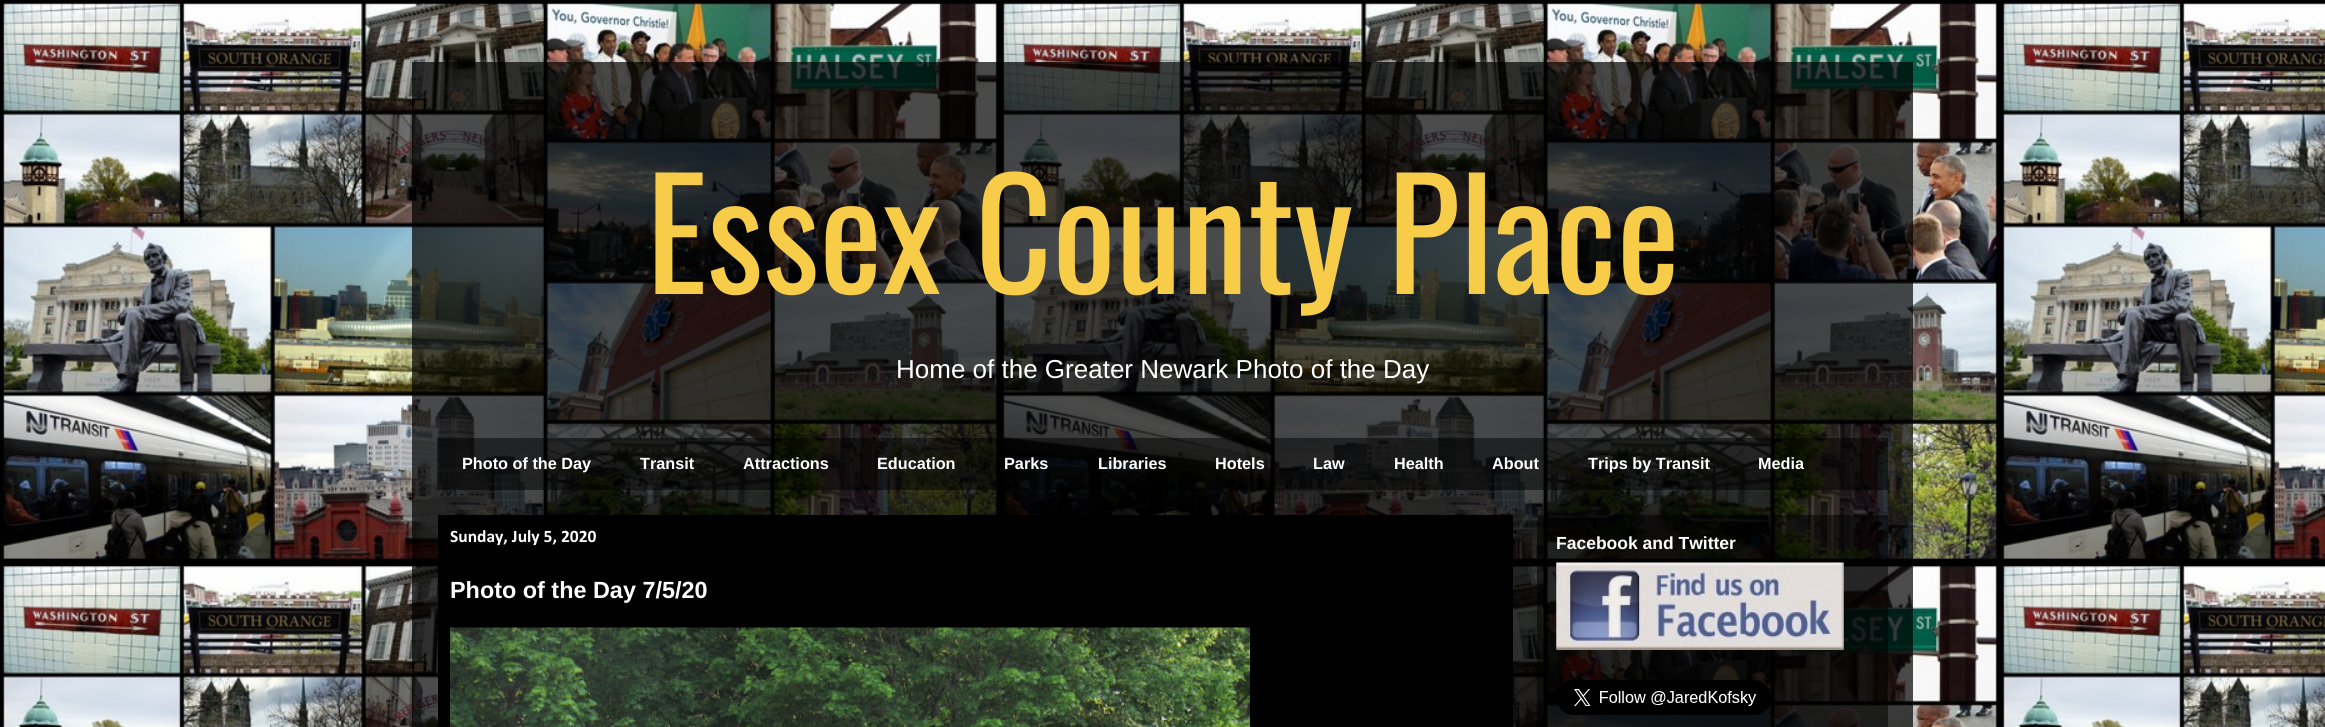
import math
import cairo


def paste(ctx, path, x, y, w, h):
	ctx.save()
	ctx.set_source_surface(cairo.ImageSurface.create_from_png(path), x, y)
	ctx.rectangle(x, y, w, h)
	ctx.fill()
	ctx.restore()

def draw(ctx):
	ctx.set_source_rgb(1, 1, 1)
	ctx.paint()
	paste(ctx, 'media/1.png', 0, 0, 2325, 727)
	ctx.set_source_rgba(0, 0, 0, 0.7)
	ctx.rectangle(412, 62, 1501, 665)
	ctx.fill()
	ctx.select_font_face('Oswald')
	ctx.set_font_size(150)
	ctx.set_source_rgb(0.965, 0.8, 0.286)
	ctx.move_to(646, 294)
	ctx.show_text('Essex County Place')
	ctx.select_font_face('Liberation Sans')
	ctx.set_font_size(26)
	ctx.set_source_rgb(1, 1, 1)
	ctx.move_to(896, 378)
	ctx.show_text('Home of the Greater Newark Photo of the Day')
	ctx.set_source_rgba(0, 0, 0, 0.5)
	ctx.rectangle(437, 438, 1451, 52)
	ctx.fill()
	ctx.select_font_face('Liberation Sans', cairo.FONT_SLANT_NORMAL, cairo.FONT_WEIGHT_BOLD)
	ctx.set_font_size(16.25)
	ctx.set_source_rgb(1, 1, 1)
	for x, y, s in [
		(462, 469, 'Photo of the Day'),
		(640, 469, 'Transit'),
		(743, 469, 'Attractions'),
		(877, 469, 'Education'),
		(1004, 469, 'Parks'),
		(1098, 469, 'Libraries'),
		(1215, 469, 'Hotels'),
		(1313, 469, 'Law'),
		(1394, 469, 'Health'),
		(1492, 469, 'About'),
		(1588, 469, 'Trips by Transit'),
		(1758, 469, 'Media'),
	]:
		ctx.move_to(x, y)
		ctx.show_text(s)
	ctx.set_source_rgba(0, 0, 0, 0.5)
	ctx.rectangle(1537, 515, 351, 212)
	ctx.fill()
	ctx.set_source_rgb(0, 0, 0)
	ctx.rectangle(438, 515, 1075, 212)
	ctx.fill()
	ctx.select_font_face('Calibri', cairo.FONT_SLANT_NORMAL, cairo.FONT_WEIGHT_BOLD)
	ctx.set_font_size(17.5)
	ctx.set_source_rgb(1, 1, 1)
	ctx.move_to(450, 542)
	ctx.show_text('Sunday, July 5, 2020')
	ctx.select_font_face('Liberation Sans', cairo.FONT_SLANT_NORMAL, cairo.FONT_WEIGHT_BOLD)
	ctx.set_font_size(23.4)
	ctx.move_to(450, 598)
	ctx.show_text('Photo of the Day 7/5/20')
	paste(ctx, 'media/2.png', 450, 627, 800, 100)
	ctx.set_font_size(17.5)
	ctx.move_to(1556, 549)
	ctx.show_text('Facebook and Twitter')
	paste(ctx, 'media/3.png', 1556, 562, 288, 88)
	paste(ctx, 'media/4.png', 1558, 680, 213, 35)


surface = cairo.ImageSurface(cairo.FORMAT_RGB24, 2325, 727)
ctx = cairo.Context(surface)
options = cairo.FontOptions()
options.set_hint_metrics(cairo.HINT_METRICS_OFF)
options.set_hint_style(cairo.HINT_STYLE_NONE)
ctx.set_font_options(options)
ctx.set_miter_limit(4)
draw(ctx)
surface.write_to_png('image.png')
